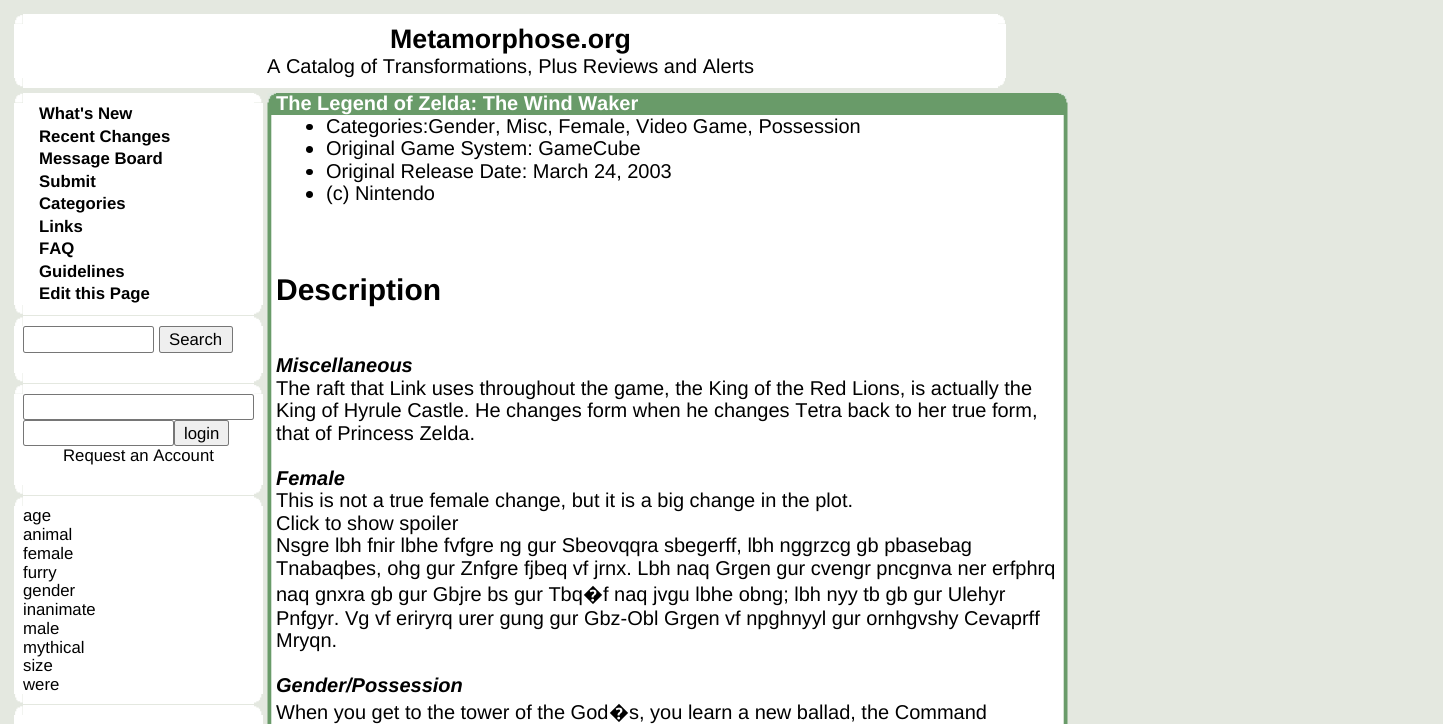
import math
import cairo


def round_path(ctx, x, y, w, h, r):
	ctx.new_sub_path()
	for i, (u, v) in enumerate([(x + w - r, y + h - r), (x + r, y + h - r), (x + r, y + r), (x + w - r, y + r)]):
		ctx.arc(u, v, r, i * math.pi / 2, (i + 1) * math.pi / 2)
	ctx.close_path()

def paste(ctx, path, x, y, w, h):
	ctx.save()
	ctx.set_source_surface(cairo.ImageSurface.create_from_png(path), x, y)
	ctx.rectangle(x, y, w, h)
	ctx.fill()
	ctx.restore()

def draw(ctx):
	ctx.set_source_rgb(0.894, 0.91, 0.878)
	ctx.paint()
	paste(ctx, 'media/1.png', 15, 15, 8, 9)
	ctx.set_source_rgb(1, 1, 1)
	ctx.rectangle(23, 14, 975, 10)
	ctx.fill()
	paste(ctx, 'media/2.png', 998, 15, 7, 9)
	ctx.rectangle(14, 24, 992, 54)
	ctx.fill()
	ctx.select_font_face('Liberation Sans', cairo.FONT_SLANT_NORMAL, cairo.FONT_WEIGHT_BOLD)
	ctx.set_font_size(26.75)
	ctx.set_source_rgb(0, 0, 0)
	ctx.move_to(390, 48)
	ctx.show_text('Metamorphose.org')
	ctx.select_font_face('Liberation Sans')
	ctx.set_font_size(20)
	ctx.move_to(267, 73)
	ctx.show_text('A Catalog of Transformations, Plus Reviews and Alerts')
	paste(ctx, 'media/3.png', 15, 78, 8, 9)
	ctx.set_source_rgb(1, 1, 1)
	ctx.rectangle(23, 78, 975, 10)
	ctx.fill()
	paste(ctx, 'media/4.png', 998, 78, 7, 9)
	paste(ctx, 'media/5.png', 15, 93, 8, 10)
	ctx.rectangle(23, 93, 231, 10)
	ctx.fill()
	paste(ctx, 'media/6.png', 254, 93, 8, 10)
	ctx.rectangle(14, 103, 249, 202)
	ctx.fill()
	ctx.select_font_face('Liberation Sans', cairo.FONT_SLANT_NORMAL, cairo.FONT_WEIGHT_BOLD)
	ctx.set_font_size(16.75)
	ctx.set_source_rgb(0, 0, 0)
	for x, y, s in [
		(39, 119, 'What\'s New'),
		(39, 142, 'Recent Changes'),
		(39, 164, 'Message Board'),
		(39, 187, 'Submit'),
		(39, 209, 'Categories'),
		(39, 232, 'Links'),
		(39, 254, 'FAQ'),
		(39, 277, 'Guidelines'),
		(39, 299, 'Edit this Page'),
	]:
		ctx.move_to(x, y)
		ctx.show_text(s)
	paste(ctx, 'media/7.png', 15, 305, 8, 9)
	ctx.set_source_rgb(1, 1, 1)
	ctx.rectangle(23, 305, 231, 10)
	ctx.fill()
	paste(ctx, 'media/8.png', 254, 305, 8, 9)
	paste(ctx, 'media/9.png', 15, 317, 8, 9)
	ctx.rectangle(23, 316, 231, 10)
	ctx.fill()
	paste(ctx, 'media/10.png', 254, 317, 8, 9)
	ctx.rectangle(14, 326, 249, 47)
	ctx.fill()
	round_path(ctx, 23.5, 326.5, 130, 26, 2)
	ctx.set_source_rgb(0.463, 0.463, 0.463)
	ctx.set_line_width(1)
	ctx.stroke()
	ctx.set_source_rgb(0.937, 0.937, 0.937)
	round_path(ctx, 159.5, 326.5, 73, 26, 2)
	ctx.fill_preserve()
	ctx.set_source_rgb(0.463, 0.463, 0.463)
	ctx.stroke()
	ctx.select_font_face('Liberation Sans')
	ctx.set_source_rgb(0, 0, 0)
	ctx.move_to(169, 345)
	ctx.show_text('Search')
	paste(ctx, 'media/3.png', 15, 373, 8, 9)
	ctx.set_source_rgb(1, 1, 1)
	ctx.rectangle(23, 373, 231, 10)
	ctx.fill()
	paste(ctx, 'media/11.png', 254, 373, 8, 9)
	paste(ctx, 'media/1.png', 15, 385, 8, 9)
	ctx.rectangle(23, 384, 231, 10)
	ctx.fill()
	paste(ctx, 'media/12.png', 254, 385, 8, 9)
	ctx.rectangle(14, 394, 249, 91)
	ctx.fill()
	round_path(ctx, 23.5, 394.5, 230, 25, 2)
	ctx.set_source_rgb(0.463, 0.463, 0.463)
	ctx.stroke()
	round_path(ctx, 23.5, 420.5, 150, 25, 2)
	ctx.stroke()
	ctx.set_source_rgb(0.937, 0.937, 0.937)
	round_path(ctx, 174.5, 420.5, 54, 25, 2)
	ctx.fill_preserve()
	ctx.set_source_rgb(0.463, 0.463, 0.463)
	ctx.stroke()
	ctx.set_source_rgb(0, 0, 0)
	ctx.move_to(184, 439)
	ctx.show_text('login')
	ctx.move_to(63, 461)
	ctx.show_text('Request an Account')
	paste(ctx, 'media/7.png', 15, 485, 8, 9)
	ctx.set_source_rgb(1, 1, 1)
	ctx.rectangle(23, 485, 231, 10)
	ctx.fill()
	paste(ctx, 'media/8.png', 254, 485, 8, 9)
	paste(ctx, 'media/9.png', 15, 497, 8, 9)
	ctx.rectangle(23, 496, 231, 10)
	ctx.fill()
	paste(ctx, 'media/10.png', 254, 497, 8, 9)
	ctx.rectangle(14, 506, 249, 188)
	ctx.fill()
	ctx.set_source_rgb(0, 0, 0)
	for x, y, s in [
		(23, 521, 'age'),
		(23, 540, 'animal'),
		(23, 559, 'female'),
		(23, 578, 'furry'),
		(23, 596, 'gender'),
		(23, 615, 'inanimate'),
		(23, 634, 'male'),
		(23, 653, 'mythical'),
		(23, 671, 'size'),
		(23, 690, 'were'),
	]:
		ctx.move_to(x, y)
		ctx.show_text(s)
	paste(ctx, 'media/13.png', 15, 694, 8, 9)
	ctx.set_source_rgb(1, 1, 1)
	ctx.rectangle(23, 694, 231, 10)
	ctx.fill()
	paste(ctx, 'media/14.png', 254, 694, 8, 9)
	paste(ctx, 'media/15.png', 15, 706, 8, 9)
	ctx.rectangle(23, 705, 231, 10)
	ctx.fill()
	paste(ctx, 'media/16.png', 254, 706, 8, 9)
	ctx.rectangle(14, 715, 249, 9)
	ctx.fill()
	paste(ctx, 'media/17.png', 267, 93, 9, 22)
	ctx.set_source_rgb(0.412, 0.608, 0.412)
	ctx.rectangle(276, 93, 783, 22)
	ctx.fill()
	ctx.select_font_face('Liberation Sans', cairo.FONT_SLANT_NORMAL, cairo.FONT_WEIGHT_BOLD)
	ctx.set_font_size(20)
	ctx.set_source_rgb(1, 1, 1)
	ctx.move_to(276, 110)
	ctx.show_text('The Legend of Zelda: The Wind Waker')
	paste(ctx, 'media/18.png', 1058, 93, 10, 22)
	paste(ctx, 'media/19.png', 267, 115, 9, 609)
	ctx.rectangle(276, 115, 783, 609)
	ctx.fill()
	ctx.set_source_rgb(0, 0, 0)
	round_path(ctx, 306, 124, 7, 6, 3)
	ctx.fill()
	ctx.select_font_face('Liberation Sans')
	ctx.move_to(326, 133)
	ctx.show_text('Categories:Gender, Misc, Female, Video Game, Possession')
	ctx.new_path()
	ctx.arc(309.5, 149.5, 3.5, 0, 2 * math.pi)
	ctx.fill()
	ctx.move_to(326, 155)
	ctx.show_text('Original Game System: GameCube')
	round_path(ctx, 306, 169, 7, 6, 3)
	ctx.fill()
	ctx.move_to(326, 178)
	ctx.show_text('Original Release Date: March 24, 2003')
	ctx.new_path()
	ctx.arc(309.5, 194.5, 3.5, 0, 2 * math.pi)
	ctx.fill()
	ctx.move_to(326, 200)
	ctx.show_text('(c) Nintendo')
	ctx.select_font_face('Liberation Sans', cairo.FONT_SLANT_NORMAL, cairo.FONT_WEIGHT_BOLD)
	ctx.set_font_size(30)
	ctx.move_to(276, 300)
	ctx.show_text('Description')
	ctx.select_font_face('Liberation Sans', cairo.FONT_SLANT_ITALIC, cairo.FONT_WEIGHT_BOLD)
	ctx.set_font_size(20)
	ctx.move_to(276, 372)
	ctx.show_text('Miscellaneous')
	ctx.select_font_face('Liberation Sans')
	for x, y, s in [
		(276, 395, 'The raft that Link uses throughout the game, the King of the Red Lions, is actually the'),
		(276, 417, 'King of Hyrule Castle. He changes form when he changes Tetra back to her true form,'),
		(276, 440, 'that of Princess Zelda.'),
	]:
		ctx.move_to(x, y)
		ctx.show_text(s)
	ctx.select_font_face('Liberation Sans', cairo.FONT_SLANT_ITALIC, cairo.FONT_WEIGHT_BOLD)
	ctx.move_to(276, 485)
	ctx.show_text('Female')
	ctx.select_font_face('Liberation Sans')
	for x, y, s in [
		(276, 507, 'This is not a true female change, but it is a big change in the plot.'),
		(276, 530, 'Click to show spoiler'),
		(276, 552, 'Nsgre lbh fnir lbhe fvfgre ng gur Sbeovqqra sbegerff, lbh nggrzcg gb pbasebag'),
		(276, 575, 'Tnabaqbes, ohg gur Znfgre fjbeq vf jrnx. Lbh naq Grgen gur cvengr pncgnva ner erfphrq'),
		(276, 601, 'naq gnxra gb gur Gbjre bs gur Tbq'),
	]:
		ctx.move_to(x, y)
		ctx.show_text(s)
	ctx.select_font_face('Noto Sans')
	ctx.move_to(583, 601)
	ctx.show_text('�')
	ctx.select_font_face('Liberation Sans')
	for x, y, s in [
		(603, 601, 'f naq jvgu lbhe obng; lbh nyy tb gb gur Ulehyr'),
		(276, 625, 'Pnfgyr. Vg vf eriryrq urer gung gur Gbz-Obl Grgen vf npghnyyl gur ornhgvshy Cevaprff'),
		(276, 647, 'Mryqn.'),
	]:
		ctx.move_to(x, y)
		ctx.show_text(s)
	ctx.select_font_face('Liberation Sans', cairo.FONT_SLANT_ITALIC, cairo.FONT_WEIGHT_BOLD)
	ctx.move_to(276, 692)
	ctx.show_text('Gender/Possession')
	ctx.select_font_face('Liberation Sans')
	ctx.move_to(276, 719)
	ctx.show_text('When you get to the tower of the God')
	ctx.select_font_face('Noto Sans')
	ctx.move_to(609, 719)
	ctx.show_text('�')
	ctx.select_font_face('Liberation Sans')
	ctx.move_to(629, 719)
	ctx.show_text('s, you learn a new ballad, the Command')
	paste(ctx, 'media/20.png', 1059, 115, 9, 609)


surface = cairo.ImageSurface(cairo.FORMAT_RGB24, 1443, 724)
ctx = cairo.Context(surface)
options = cairo.FontOptions()
options.set_hint_metrics(cairo.HINT_METRICS_OFF)
options.set_hint_style(cairo.HINT_STYLE_NONE)
ctx.set_font_options(options)
ctx.set_miter_limit(4)
draw(ctx)
surface.write_to_png('image.png')
